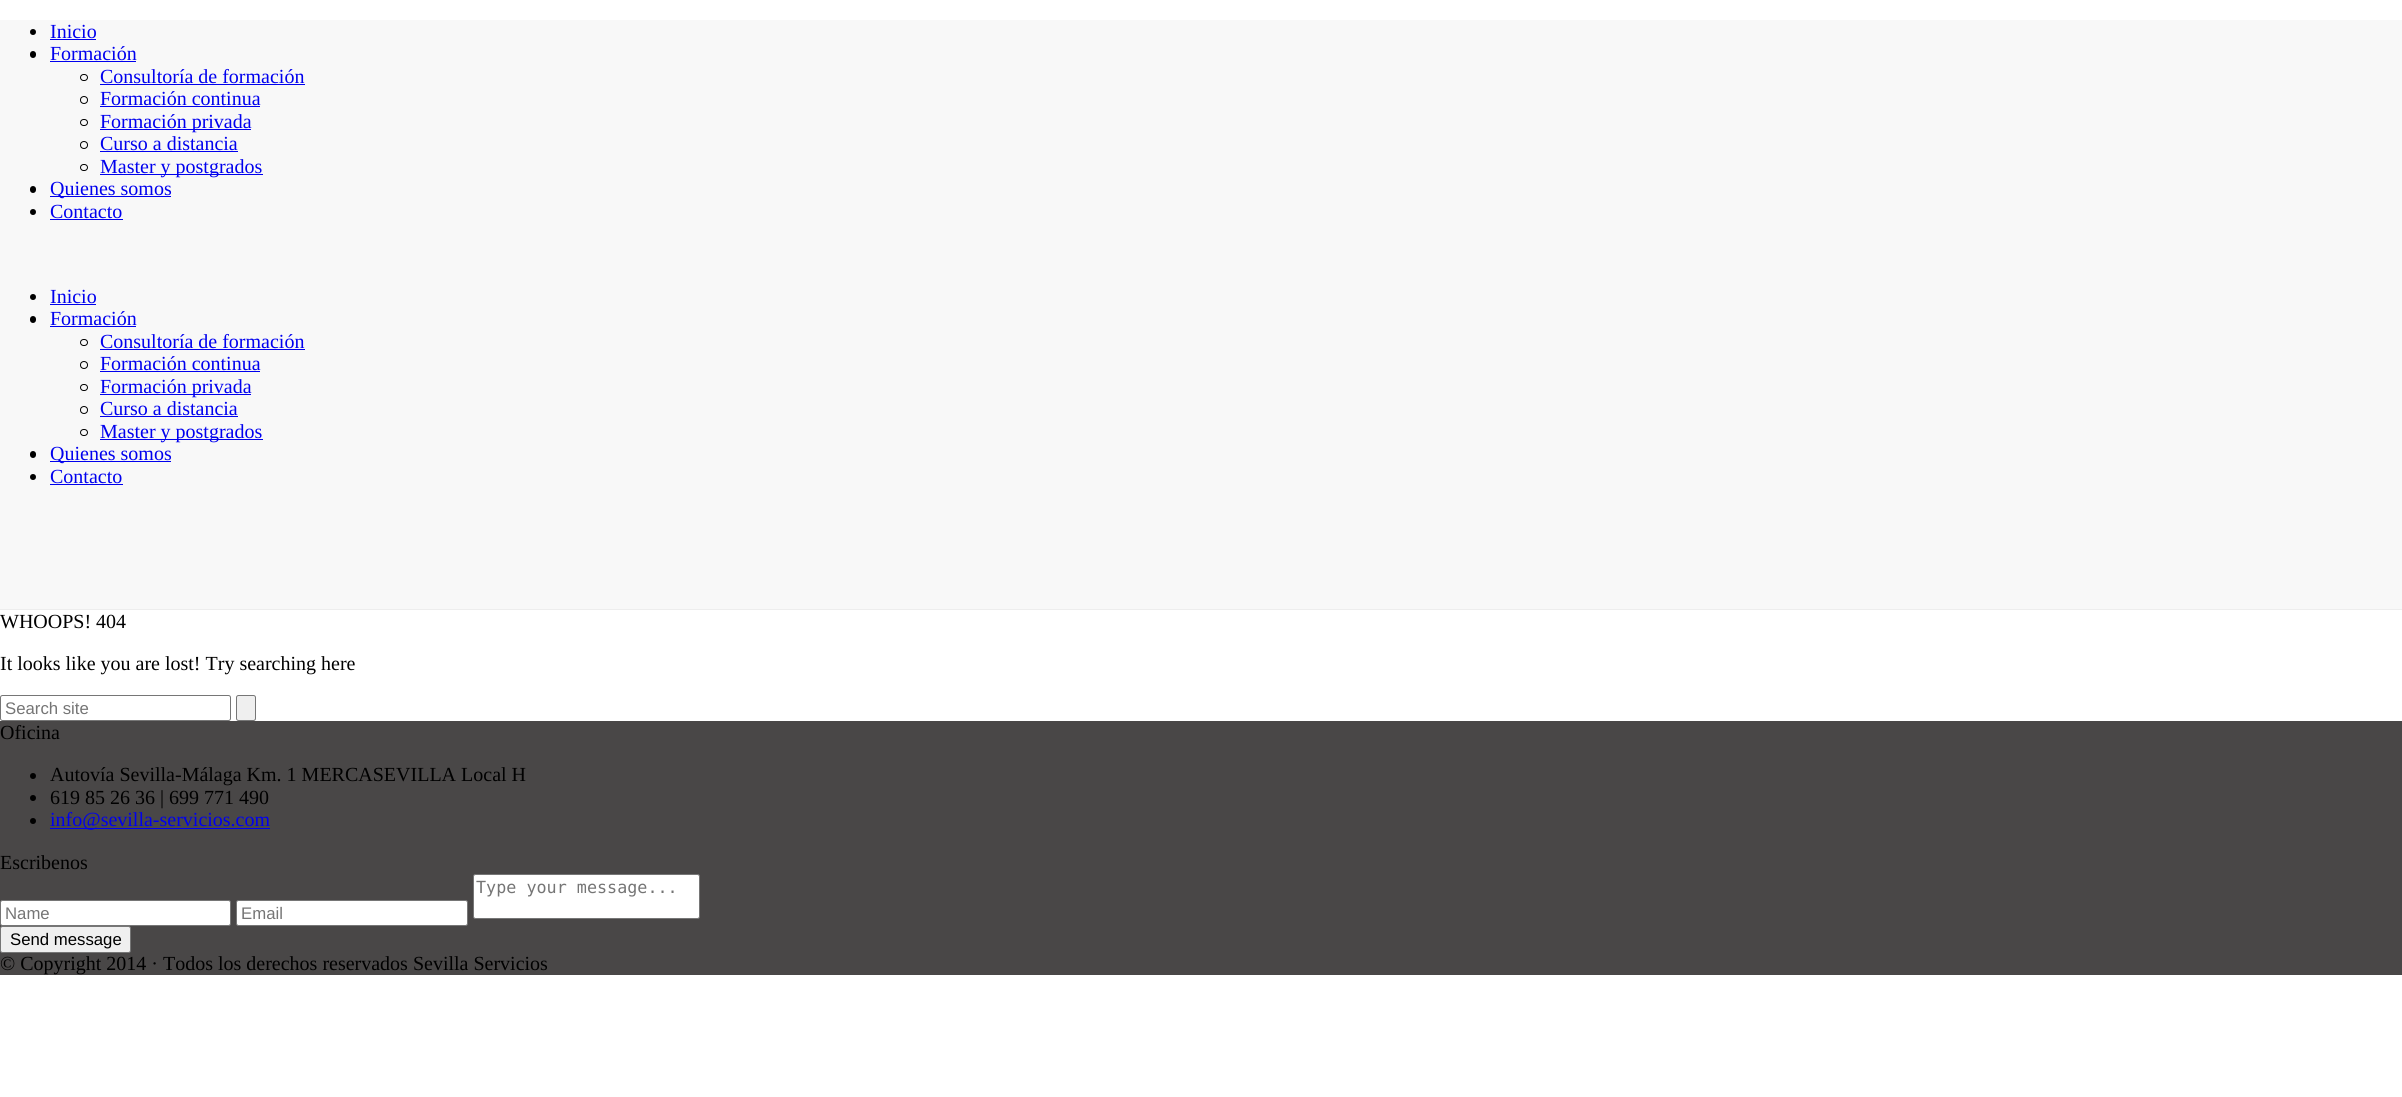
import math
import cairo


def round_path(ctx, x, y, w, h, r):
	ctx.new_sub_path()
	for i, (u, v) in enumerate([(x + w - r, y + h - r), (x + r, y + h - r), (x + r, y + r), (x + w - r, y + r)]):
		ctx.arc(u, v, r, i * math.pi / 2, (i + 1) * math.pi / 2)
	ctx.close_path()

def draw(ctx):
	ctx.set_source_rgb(1, 1, 1)
	ctx.paint()
	ctx.set_source_rgb(0.969, 0.969, 0.969)
	ctx.rectangle(0, 20, 2402, 589)
	ctx.fill()
	ctx.set_source_rgb(0.929, 0.929, 0.929)
	ctx.rectangle(0, 609, 2402, 1)
	ctx.fill()
	ctx.set_source_rgb(0, 0, 0)
	ctx.arc(33, 32, 3, 0, 2 * math.pi)
	ctx.fill()
	ctx.select_font_face('Liberation Serif')
	ctx.set_font_size(20)
	ctx.set_source_rgb(0, 0, 0.933)
	ctx.move_to(50, 38)
	ctx.show_text('Inicio')
	ctx.rectangle(50, 39, 46, 1)
	ctx.fill()
	ctx.set_source_rgb(0, 0, 0)
	round_path(ctx, 30, 51, 6, 7, 3)
	ctx.fill()
	ctx.set_source_rgb(0, 0, 0.933)
	ctx.move_to(50, 60)
	ctx.show_text('Formación')
	ctx.rectangle(50, 61, 86, 1)
	ctx.fill()
	round_path(ctx, 80.5, 74.5, 7, 6, 3)
	ctx.set_source_rgb(0, 0, 0)
	ctx.set_line_width(1)
	ctx.stroke()
	ctx.set_source_rgb(0, 0, 0.933)
	ctx.move_to(100, 83)
	ctx.show_text('Consultoría de formación')
	ctx.rectangle(100, 84, 205, 1)
	ctx.fill()
	ctx.arc(84, 100, 3.5, 0, 2 * math.pi)
	ctx.set_source_rgb(0, 0, 0)
	ctx.stroke()
	ctx.set_source_rgb(0, 0, 0.933)
	ctx.move_to(100, 105)
	ctx.show_text('Formación continua')
	ctx.rectangle(100, 106, 160, 1)
	ctx.fill()
	round_path(ctx, 80.5, 119.5, 7, 6, 3)
	ctx.set_source_rgb(0, 0, 0)
	ctx.stroke()
	ctx.set_source_rgb(0, 0, 0.933)
	ctx.rectangle(100, 129, 151, 1)
	ctx.fill()
	ctx.move_to(100, 128)
	ctx.show_text('Formación privada')
	ctx.new_path()
	ctx.arc(84, 145, 3.5, 0, 2 * math.pi)
	ctx.set_source_rgb(0, 0, 0)
	ctx.stroke()
	ctx.set_source_rgb(0, 0, 0.933)
	ctx.move_to(100, 150)
	ctx.show_text('Curso a distancia')
	ctx.rectangle(100, 151, 138, 1)
	ctx.fill()
	round_path(ctx, 80.5, 164.5, 7, 6, 3)
	ctx.set_source_rgb(0, 0, 0)
	ctx.stroke()
	ctx.set_source_rgb(0, 0, 0.933)
	ctx.rectangle(100, 174, 163, 1)
	ctx.fill()
	ctx.move_to(100, 173)
	ctx.show_text('Master y postgrados')
	ctx.set_source_rgb(0, 0, 0)
	round_path(ctx, 30, 186, 6, 7, 3)
	ctx.fill()
	ctx.set_source_rgb(0, 0, 0.933)
	ctx.rectangle(50, 196, 121, 1)
	ctx.fill()
	ctx.move_to(50, 195)
	ctx.show_text('Quienes somos')
	ctx.set_source_rgb(0, 0, 0)
	ctx.new_path()
	ctx.arc(33, 212, 3, 0, 2 * math.pi)
	ctx.fill()
	ctx.set_source_rgb(0, 0, 0.933)
	ctx.move_to(50, 218)
	ctx.show_text('Contacto')
	ctx.rectangle(50, 219, 73, 1)
	ctx.fill()
	ctx.set_source_rgb(0, 0, 0)
	ctx.arc(33, 297, 3, 0, 2 * math.pi)
	ctx.fill()
	ctx.set_source_rgb(0, 0, 0.933)
	ctx.move_to(50, 303)
	ctx.show_text('Inicio')
	ctx.rectangle(50, 304, 46, 1)
	ctx.fill()
	ctx.set_source_rgb(0, 0, 0)
	round_path(ctx, 30, 316, 6, 7, 3)
	ctx.fill()
	ctx.set_source_rgb(0, 0, 0.933)
	ctx.move_to(50, 325)
	ctx.show_text('Formación')
	ctx.rectangle(50, 326, 86, 1)
	ctx.fill()
	round_path(ctx, 80.5, 339.5, 7, 6, 3)
	ctx.set_source_rgb(0, 0, 0)
	ctx.stroke()
	ctx.set_source_rgb(0, 0, 0.933)
	ctx.move_to(100, 348)
	ctx.show_text('Consultoría de formación')
	ctx.rectangle(100, 349, 205, 1)
	ctx.fill()
	ctx.arc(84, 365, 3.5, 0, 2 * math.pi)
	ctx.set_source_rgb(0, 0, 0)
	ctx.stroke()
	ctx.set_source_rgb(0, 0, 0.933)
	ctx.move_to(100, 370)
	ctx.show_text('Formación continua')
	ctx.rectangle(100, 371, 160, 1)
	ctx.fill()
	round_path(ctx, 80.5, 384.5, 7, 6, 3)
	ctx.set_source_rgb(0, 0, 0)
	ctx.stroke()
	ctx.set_source_rgb(0, 0, 0.933)
	ctx.rectangle(100, 394, 151, 1)
	ctx.fill()
	ctx.move_to(100, 393)
	ctx.show_text('Formación privada')
	ctx.new_path()
	ctx.arc(84, 410, 3.5, 0, 2 * math.pi)
	ctx.set_source_rgb(0, 0, 0)
	ctx.stroke()
	ctx.set_source_rgb(0, 0, 0.933)
	ctx.move_to(100, 415)
	ctx.show_text('Curso a distancia')
	ctx.rectangle(100, 416, 138, 1)
	ctx.fill()
	round_path(ctx, 80.5, 429.5, 7, 6, 3)
	ctx.set_source_rgb(0, 0, 0)
	ctx.stroke()
	ctx.set_source_rgb(0, 0, 0.933)
	ctx.rectangle(100, 439, 163, 1)
	ctx.fill()
	ctx.move_to(100, 438)
	ctx.show_text('Master y postgrados')
	ctx.set_source_rgb(0, 0, 0)
	round_path(ctx, 30, 451, 6, 7, 3)
	ctx.fill()
	ctx.set_source_rgb(0, 0, 0.933)
	ctx.rectangle(50, 461, 121, 1)
	ctx.fill()
	ctx.move_to(50, 460)
	ctx.show_text('Quienes somos')
	ctx.set_source_rgb(0, 0, 0)
	ctx.new_path()
	ctx.arc(33, 477, 3, 0, 2 * math.pi)
	ctx.fill()
	ctx.set_source_rgb(0, 0, 0.933)
	ctx.move_to(50, 483)
	ctx.show_text('Contacto')
	ctx.rectangle(50, 484, 73, 1)
	ctx.fill()
	ctx.set_source_rgb(0, 0, 0)
	ctx.move_to(0, 628)
	ctx.show_text('WHOOPS! 404')
	ctx.move_to(0, 670)
	ctx.show_text('It looks like you are lost! Try searching here')
	round_path(ctx, 0.5, 695.5, 230, 25, 2)
	ctx.set_source_rgb(0.463, 0.463, 0.463)
	ctx.stroke()
	ctx.select_font_face('Liberation Sans')
	ctx.set_font_size(16.75)
	ctx.set_source_rgb(0.459, 0.459, 0.459)
	ctx.move_to(5, 714)
	ctx.show_text('Search site')
	ctx.set_source_rgb(0.937, 0.937, 0.937)
	round_path(ctx, 236.5, 695.5, 19, 25, 2)
	ctx.fill_preserve()
	ctx.set_source_rgb(0.463, 0.463, 0.463)
	ctx.stroke()
	ctx.set_source_rgb(0.286, 0.278, 0.278)
	ctx.rectangle(0, 721, 2402, 254)
	ctx.fill()
	ctx.select_font_face('Liberation Serif')
	ctx.set_font_size(20)
	ctx.set_source_rgb(0, 0, 0)
	ctx.move_to(0, 739)
	ctx.show_text('Oficina')
	ctx.new_path()
	ctx.arc(33, 776, 3, 0, 2 * math.pi)
	ctx.fill()
	ctx.move_to(50, 781)
	ctx.show_text('Autovía Sevilla-Málaga Km. 1 MERCASEVILLA Local H')
	ctx.new_path()
	ctx.arc(33, 798, 3, 0, 2 * math.pi)
	ctx.fill()
	ctx.move_to(50, 804)
	ctx.show_text('619 85 26 36 | 699 771 490')
	ctx.new_path()
	ctx.arc(33, 821, 3, 0, 2 * math.pi)
	ctx.fill()
	ctx.set_source_rgb(0, 0, 0.933)
	ctx.rectangle(50, 828, 220, 1)
	ctx.fill()
	ctx.move_to(50, 826)
	ctx.show_text('info@sevilla-servicios.com')
	ctx.set_source_rgb(0, 0, 0)
	ctx.move_to(0, 869)
	ctx.show_text('Escribenos')
	ctx.set_source_rgb(1, 1, 1)
	round_path(ctx, 473.5, 874.5, 226, 44, 2)
	ctx.fill_preserve()
	ctx.set_source_rgb(0.463, 0.463, 0.463)
	ctx.stroke()
	ctx.select_font_face('DejaVu Sans Mono')
	ctx.set_font_size(16.75)
	ctx.set_source_rgb(0.459, 0.459, 0.459)
	ctx.move_to(476, 893)
	ctx.show_text('Type your message...')
	ctx.set_source_rgb(1, 1, 1)
	round_path(ctx, 0.5, 900.5, 230, 25, 2)
	ctx.fill_preserve()
	ctx.set_source_rgb(0.463, 0.463, 0.463)
	ctx.stroke()
	ctx.select_font_face('Liberation Sans')
	ctx.set_source_rgb(0.459, 0.459, 0.459)
	ctx.move_to(5, 919)
	ctx.show_text('Name')
	ctx.set_source_rgb(1, 1, 1)
	round_path(ctx, 236.5, 900.5, 231, 25, 2)
	ctx.fill_preserve()
	ctx.set_source_rgb(0.463, 0.463, 0.463)
	ctx.stroke()
	ctx.set_source_rgb(0.459, 0.459, 0.459)
	ctx.move_to(241, 919)
	ctx.show_text('Email')
	ctx.set_source_rgb(0.937, 0.937, 0.937)
	round_path(ctx, 0.5, 926.5, 130, 26, 2)
	ctx.fill_preserve()
	ctx.set_source_rgb(0.463, 0.463, 0.463)
	ctx.stroke()
	ctx.set_source_rgb(0, 0, 0)
	ctx.move_to(10, 945)
	ctx.show_text('Send message')
	ctx.select_font_face('Liberation Serif')
	ctx.set_font_size(20)
	ctx.move_to(0, 970)
	ctx.show_text('© Copyright 2014 · Todos los derechos reservados Sevilla Servicios')


surface = cairo.ImageSurface(cairo.FORMAT_RGB24, 2402, 1097)
ctx = cairo.Context(surface)
options = cairo.FontOptions()
options.set_hint_metrics(cairo.HINT_METRICS_OFF)
options.set_hint_style(cairo.HINT_STYLE_NONE)
ctx.set_font_options(options)
ctx.set_miter_limit(4)
draw(ctx)
surface.write_to_png('image.png')
